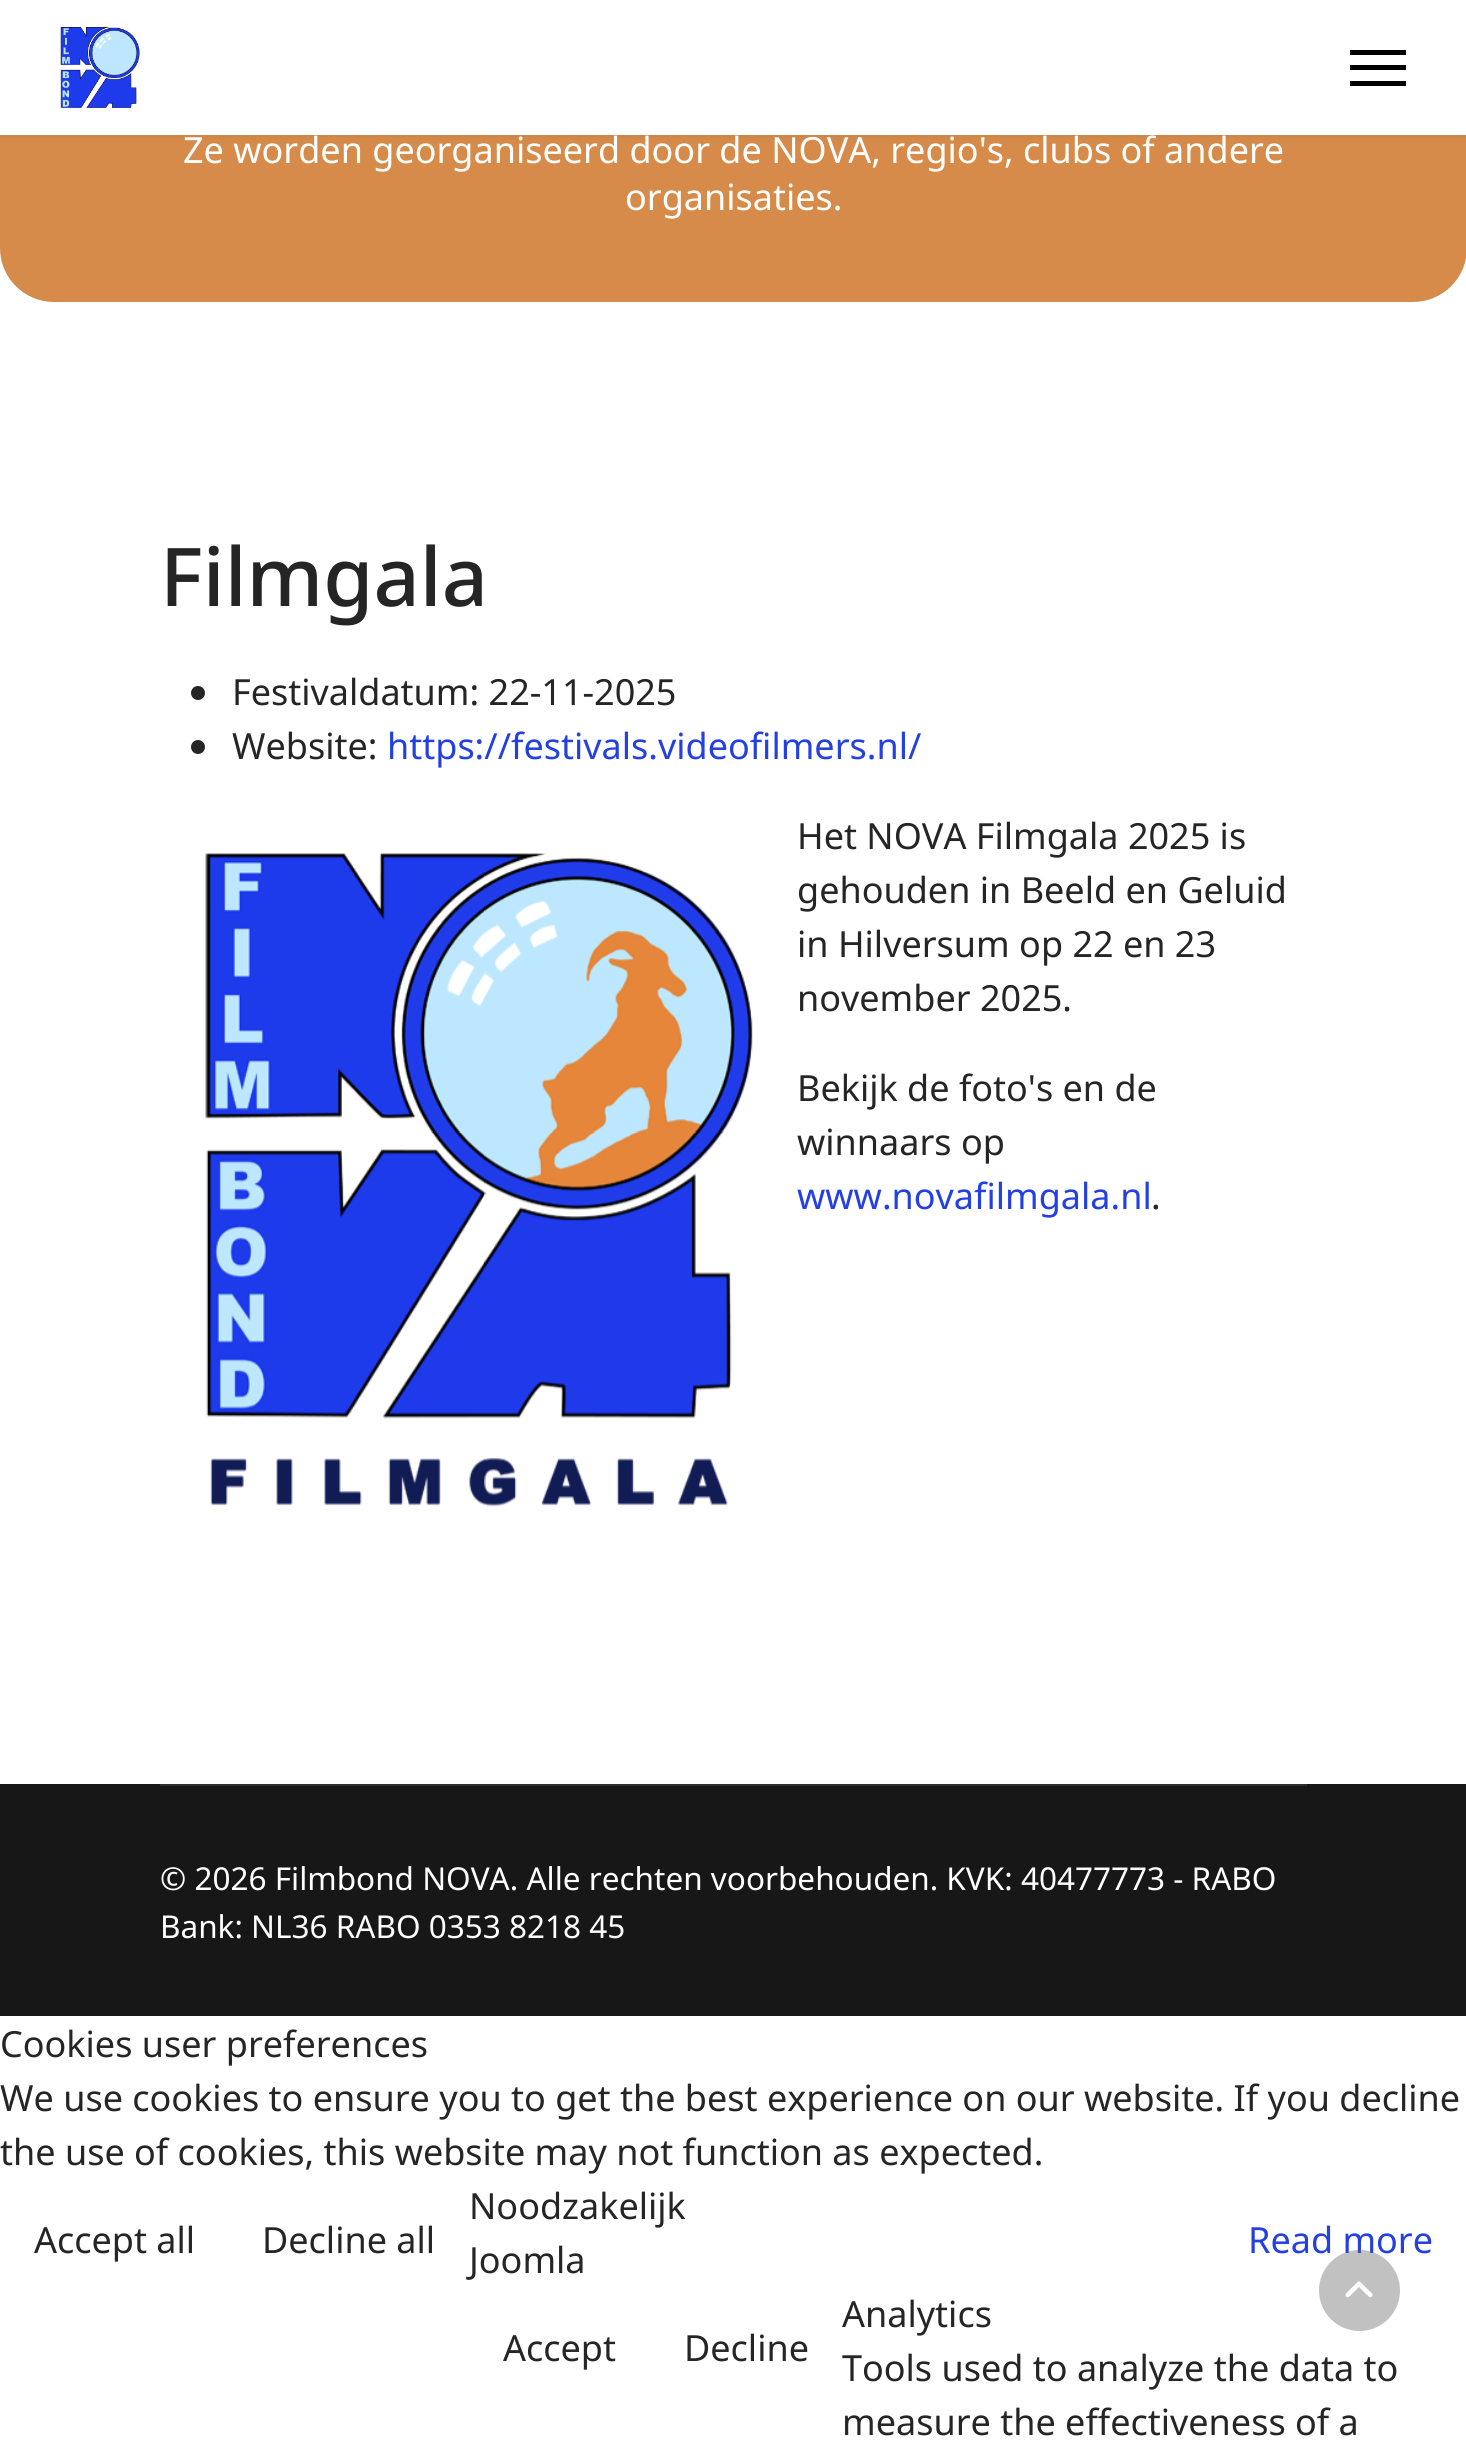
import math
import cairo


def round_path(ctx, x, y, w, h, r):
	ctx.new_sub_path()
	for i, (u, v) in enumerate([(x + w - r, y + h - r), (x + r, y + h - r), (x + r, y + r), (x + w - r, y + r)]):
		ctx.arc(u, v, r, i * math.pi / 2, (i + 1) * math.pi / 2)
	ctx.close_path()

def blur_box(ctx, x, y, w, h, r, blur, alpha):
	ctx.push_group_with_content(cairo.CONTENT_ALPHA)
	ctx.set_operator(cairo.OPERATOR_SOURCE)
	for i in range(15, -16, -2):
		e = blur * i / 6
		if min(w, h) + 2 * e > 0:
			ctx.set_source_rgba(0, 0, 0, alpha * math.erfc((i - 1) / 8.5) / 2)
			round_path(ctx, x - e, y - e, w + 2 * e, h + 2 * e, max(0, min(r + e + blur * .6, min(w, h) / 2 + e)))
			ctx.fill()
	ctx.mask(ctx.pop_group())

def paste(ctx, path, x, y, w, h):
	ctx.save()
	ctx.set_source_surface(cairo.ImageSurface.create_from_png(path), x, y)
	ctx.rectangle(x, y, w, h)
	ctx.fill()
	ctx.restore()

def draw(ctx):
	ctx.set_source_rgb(1, 1, 1)
	ctx.paint()
	ctx.set_source_rgb(0.839, 0.545, 0.29)
	round_path(ctx, 0, -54, 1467, 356, 54)
	ctx.fill()
	ctx.set_source_rgb(0, 0, 0)
	blur_box(ctx, 0, 0, 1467, 135, 0, 4.5, 0.1)
	ctx.set_source_rgb(1, 1, 1)
	ctx.rectangle(0, 0, 1466, 135)
	ctx.fill()
	paste(ctx, 'media/1.png', 60, 27, 80, 81)
	ctx.set_source_rgb(0, 0, 0)
	ctx.rectangle(1350, 50, 56, 5)
	ctx.rectangle(1350, 65, 56, 5)
	ctx.rectangle(1350, 81, 56, 5)
	ctx.fill()
	ctx.select_font_face('Noto Sans')
	ctx.set_font_size(36)
	ctx.set_source_rgb(1, 1, 1)
	ctx.move_to(183, 163)
	ctx.show_text('Ze worden georganiseerd door de NOVA, regio\'s, clubs of andere')
	ctx.move_to(625, 210)
	ctx.show_text('organisaties.')
	ctx.select_font_face('Noto Sans Medium')
	ctx.set_font_size(81)
	ctx.set_source_rgb(0.145, 0.145, 0.145)
	ctx.move_to(160, 606)
	ctx.show_text('Filmgala')
	ctx.new_path()
	ctx.arc(198, 693, 7, 0, 2 * math.pi)
	ctx.fill()
	ctx.select_font_face('Noto Sans')
	ctx.set_font_size(36)
	ctx.move_to(232, 705)
	ctx.show_text('Festivaldatum: 22-11-2025')
	ctx.new_path()
	ctx.arc(198, 747, 7, 0, 2 * math.pi)
	ctx.fill()
	ctx.move_to(232, 759)
	ctx.show_text('Website:')
	ctx.set_source_rgb(0.141, 0.251, 0.886)
	ctx.move_to(387, 759)
	ctx.show_text('https://festivals.videofilmers.nl/')
	ctx.set_source_rgb(0.145, 0.145, 0.145)
	ctx.move_to(797, 849)
	ctx.show_text('Het NOVA Filmgala 2025 is')
	paste(ctx, 'media/2.png', 205, 853, 548, 654)
	for x, y, s in [
		(797, 903, 'gehouden in Beeld en Geluid'),
		(797, 957, 'in Hilversum op 22 en 23'),
		(797, 1011, 'november 2025.'),
		(797, 1101, 'Bekijk de foto\'s en de'),
		(797, 1155, 'winnaars op'),
	]:
		ctx.move_to(x, y)
		ctx.show_text(s)
	ctx.set_source_rgb(0.141, 0.251, 0.886)
	ctx.move_to(797, 1209)
	ctx.show_text('www.novafilmgala.nl')
	ctx.set_source_rgb(0.145, 0.145, 0.145)
	ctx.move_to(1151, 1209)
	ctx.show_text('.')
	ctx.set_source_rgb(0.09, 0.09, 0.09)
	ctx.rectangle(0, 1784, 1466, 232)
	ctx.fill()
	ctx.set_source_rgb(0.18, 0.18, 0.18)
	ctx.rectangle(160, 1784, 1147, 2)
	ctx.fill()
	ctx.set_font_size(31.5)
	ctx.set_source_rgb(1, 1, 1)
	ctx.move_to(160, 1890)
	ctx.show_text('© 2026 Filmbond NOVA. Alle rechten voorbehouden. KVK: 40477773 - RABO')
	ctx.move_to(160, 1938)
	ctx.show_text('Bank: NL36 RABO 0353 8218 45')
	ctx.set_font_size(36)
	ctx.set_source_rgb(0.145, 0.145, 0.145)
	for x, y, s in [
		(0, 2057, 'Cookies user preferences'),
		(0, 2111, 'We use cookies to ensure you to get the best experience on our website. If you decline'),
		(0, 2165, 'the use of cookies, this website may not function as expected.'),
		(469, 2219, 'Noodzakelijk'),
		(469, 2273, 'Joomla'),
		(503, 2361, 'Accept'),
		(684, 2361, 'Decline'),
		(34, 2253, 'Accept all'),
		(262, 2253, 'Decline all'),
	]:
		ctx.move_to(x, y)
		ctx.show_text(s)
	ctx.set_source_rgb(0.141, 0.251, 0.886)
	ctx.move_to(1248, 2253)
	ctx.show_text('Read more')
	ctx.set_source_rgb(0.145, 0.145, 0.145)
	for x, y, s in [
		(842, 2327, 'Analytics'),
		(842, 2381, 'Tools used to analyze the data to'),
		(842, 2435, 'measure the effectiveness of a'),
	]:
		ctx.move_to(x, y)
		ctx.show_text(s)
	ctx.set_source_rgba(0.392, 0.392, 0.392, 0.4)
	ctx.new_path()
	ctx.arc(1359.5, 2290.5, 40.5, 0, 2 * math.pi)
	ctx.fill()
	paste(ctx, 'media/3.png', 1345, 2281, 28, 17)


surface = cairo.ImageSurface(cairo.FORMAT_RGB24, 1466, 2464)
ctx = cairo.Context(surface)
options = cairo.FontOptions()
options.set_hint_metrics(cairo.HINT_METRICS_OFF)
options.set_hint_style(cairo.HINT_STYLE_NONE)
ctx.set_font_options(options)
ctx.set_miter_limit(4)
draw(ctx)
surface.write_to_png('image.png')
